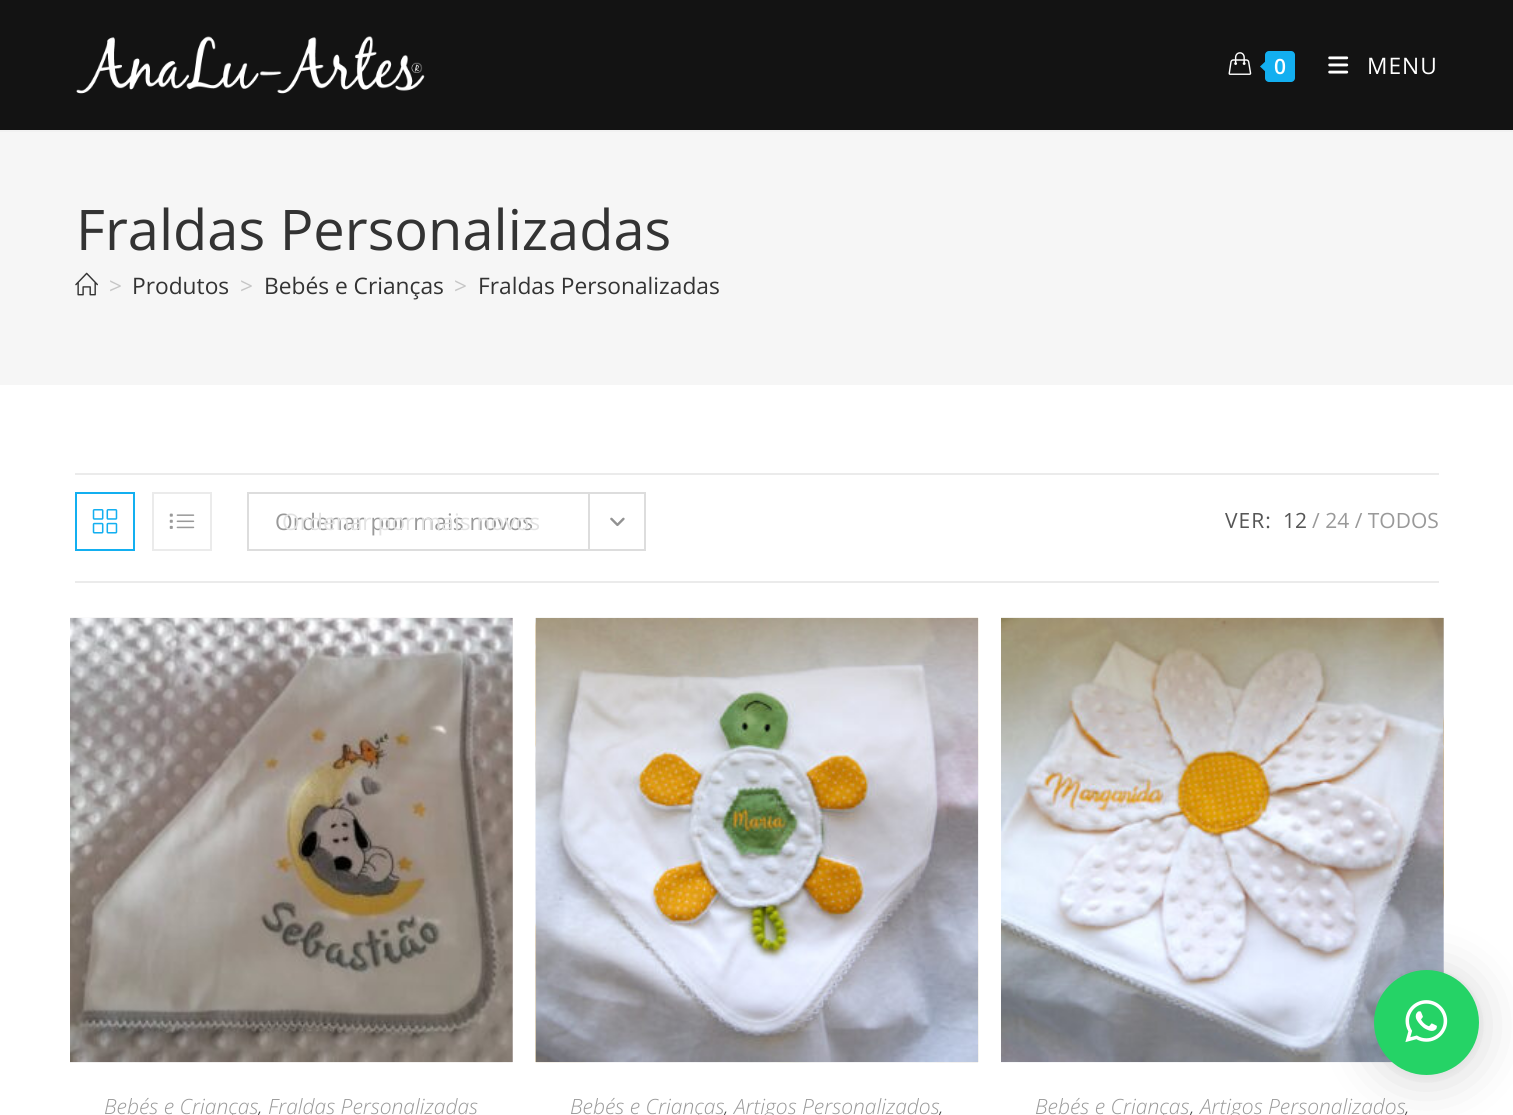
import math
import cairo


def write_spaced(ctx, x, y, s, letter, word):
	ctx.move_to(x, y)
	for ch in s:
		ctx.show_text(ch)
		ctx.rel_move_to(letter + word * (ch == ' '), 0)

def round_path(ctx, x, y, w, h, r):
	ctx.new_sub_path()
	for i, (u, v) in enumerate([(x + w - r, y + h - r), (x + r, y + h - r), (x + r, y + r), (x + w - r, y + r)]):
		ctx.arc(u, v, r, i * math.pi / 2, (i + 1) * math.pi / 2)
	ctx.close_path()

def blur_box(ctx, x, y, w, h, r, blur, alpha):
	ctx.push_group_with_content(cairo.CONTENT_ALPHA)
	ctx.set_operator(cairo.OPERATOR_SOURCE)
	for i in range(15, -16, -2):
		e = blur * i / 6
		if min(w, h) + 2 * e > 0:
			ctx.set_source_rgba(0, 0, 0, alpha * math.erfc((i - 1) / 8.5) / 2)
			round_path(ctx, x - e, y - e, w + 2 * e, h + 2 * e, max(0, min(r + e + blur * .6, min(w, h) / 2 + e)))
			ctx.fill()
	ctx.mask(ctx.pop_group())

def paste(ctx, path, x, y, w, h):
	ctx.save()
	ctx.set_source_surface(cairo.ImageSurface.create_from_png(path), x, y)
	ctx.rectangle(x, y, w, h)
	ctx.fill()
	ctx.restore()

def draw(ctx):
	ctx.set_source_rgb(1, 1, 1)
	ctx.paint()
	ctx.set_source_rgb(0.075, 0.075, 0.075)
	ctx.rectangle(0, 0, 1513, 130)
	ctx.fill()
	ctx.set_source_rgb(0.945, 0.945, 0.945)
	ctx.rectangle(0, 130, 1513, 2)
	ctx.fill()
	paste(ctx, 'media/1.png', 76, 36, 349, 58)
	paste(ctx, 'media/2.png', 1228, 52, 24, 23)
	ctx.set_source_rgb(0.075, 0.686, 0.941)
	round_path(ctx, 1265, 51, 30, 31, 4)
	ctx.fill()
	ctx.new_path()
	ctx.move_to(1269, 58)
	ctx.line_to(1269, 75)
	ctx.line_to(1260, 66.5)
	ctx.close_path()
	ctx.fill()
	ctx.select_font_face('Open Sans SemiBold')
	ctx.set_font_size(21)
	ctx.set_source_rgb(1, 1, 1)
	write_spaced(ctx, 1274, 74, '0', 1, 0)
	paste(ctx, 'media/3.png', 1328, 56, 21, 18)
	ctx.select_font_face('Open Sans')
	ctx.set_font_size(22.75)
	write_spaced(ctx, 1367, 74, 'MENU', 1, 0)
	ctx.set_source_rgb(0.961, 0.961, 0.961)
	ctx.rectangle(0, 132, 1513, 253)
	ctx.fill()
	ctx.set_font_size(56)
	ctx.set_source_rgb(0.2, 0.2, 0.2)
	ctx.move_to(76, 250)
	ctx.show_text('Fraldas Personalizadas')
	paste(ctx, 'media/4.png', 75, 272, 23, 24)
	ctx.set_font_size(22.75)
	ctx.set_source_rgb(0.776, 0.776, 0.776)
	ctx.move_to(109, 294)
	ctx.show_text('>')
	ctx.set_source_rgb(0.2, 0.2, 0.2)
	ctx.move_to(132, 294)
	ctx.show_text('Produtos')
	ctx.set_source_rgb(0.776, 0.776, 0.776)
	ctx.move_to(240, 294)
	ctx.show_text('>')
	ctx.set_source_rgb(0.2, 0.2, 0.2)
	ctx.move_to(264, 294)
	ctx.show_text('Bebés e Crianças')
	ctx.set_source_rgb(0.776, 0.776, 0.776)
	ctx.move_to(454, 294)
	ctx.show_text('>')
	ctx.set_source_rgb(0.2, 0.2, 0.2)
	ctx.move_to(478, 294)
	ctx.show_text('Fraldas Personalizadas')
	ctx.set_source_rgb(0.918, 0.918, 0.918)
	ctx.rectangle(75, 473, 1364, 2)
	ctx.fill()
	ctx.rectangle(75, 581, 1364, 2)
	ctx.fill()
	ctx.rectangle(76, 493, 58, 57)
	ctx.set_source_rgb(0.075, 0.686, 0.941)
	ctx.stroke()
	paste(ctx, 'media/5.png', 92, 509, 26, 25)
	ctx.rectangle(153, 493, 58, 57)
	ctx.set_source_rgb(0.918, 0.918, 0.918)
	ctx.stroke()
	paste(ctx, 'media/6.png', 169, 513, 26, 16)
	ctx.rectangle(248, 493, 397, 57)
	ctx.set_source_rgb(0.867, 0.867, 0.867)
	ctx.stroke()
	ctx.set_source_rgb(0.6, 0.6, 0.6)
	ctx.move_to(275, 530)
	ctx.show_text('Ordenar por mais novos')
	ctx.set_source_rgb(0.867, 0.867, 0.867)
	ctx.rectangle(588, 494, 2, 56)
	ctx.fill()
	paste(ctx, 'media/7.png', 610, 517, 15, 10)
	ctx.set_source_rgb(0.89, 0.89, 0.89)
	ctx.move_to(282, 530)
	ctx.show_text('Ordenar por mais novos')
	ctx.set_font_size(21)
	ctx.set_source_rgb(0.333, 0.333, 0.333)
	write_spaced(ctx, 1225, 528, 'VER:', 1, 0)
	ctx.move_to(1283, 528)
	ctx.show_text('12')
	ctx.set_source_rgb(0.6, 0.6, 0.6)
	ctx.move_to(1312, 528)
	ctx.show_text('/ 24 / TODOS')
	paste(ctx, 'media/8.png', 70, 617, 443, 446)
	paste(ctx, 'media/9.png', 70, 617, 443, 446)
	ctx.select_font_face('Open Sans Light', cairo.FONT_SLANT_ITALIC)
	ctx.move_to(104, 1114)
	ctx.show_text('Bebés e Crianças')
	ctx.set_source_rgb(0.29, 0.29, 0.29)
	ctx.move_to(258, 1114)
	ctx.show_text(',')
	ctx.set_source_rgb(0.6, 0.6, 0.6)
	ctx.move_to(268, 1114)
	ctx.show_text('Fraldas Personalizadas')
	paste(ctx, 'media/10.png', 535, 617, 444, 446)
	paste(ctx, 'media/11.png', 535, 617, 444, 446)
	ctx.move_to(570, 1114)
	ctx.show_text('Bebés e Crianças')
	ctx.set_source_rgb(0.29, 0.29, 0.29)
	ctx.move_to(724, 1114)
	ctx.show_text(',')
	ctx.set_source_rgb(0.6, 0.6, 0.6)
	ctx.move_to(734, 1114)
	ctx.show_text('Artigos Personalizados')
	ctx.set_source_rgb(0.29, 0.29, 0.29)
	ctx.move_to(939, 1114)
	ctx.show_text(',')
	paste(ctx, 'media/12.png', 1001, 617, 443, 446)
	paste(ctx, 'media/13.png', 1001, 617, 443, 446)
	ctx.set_source_rgb(0.6, 0.6, 0.6)
	ctx.move_to(1035, 1114)
	ctx.show_text('Bebés e Crianças')
	ctx.set_source_rgb(0.29, 0.29, 0.29)
	ctx.move_to(1190, 1114)
	ctx.show_text(',')
	ctx.set_source_rgb(0.6, 0.6, 0.6)
	ctx.move_to(1200, 1114)
	ctx.show_text('Artigos Personalizados')
	ctx.set_source_rgb(0.29, 0.29, 0.29)
	ctx.move_to(1405, 1114)
	ctx.show_text(',')
	ctx.set_source_rgb(0, 0, 0)
	blur_box(ctx, 1374, 973, 105, 105, 52.5, 28, 0.16)
	blur_box(ctx, 1374, 971, 105, 105, 52.5, 5, 0.06)
	ctx.set_source_rgb(0.145, 0.827, 0.4)
	ctx.arc(1426.5, 1022.5, 52.5, 0, 2 * math.pi)
	ctx.fill()
	paste(ctx, 'media/14.png', 1405, 1000, 43, 43)


surface = cairo.ImageSurface(cairo.FORMAT_RGB24, 1513, 1115)
ctx = cairo.Context(surface)
options = cairo.FontOptions()
options.set_hint_metrics(cairo.HINT_METRICS_OFF)
options.set_hint_style(cairo.HINT_STYLE_NONE)
ctx.set_font_options(options)
ctx.set_miter_limit(4)
draw(ctx)
surface.write_to_png('image.png')
